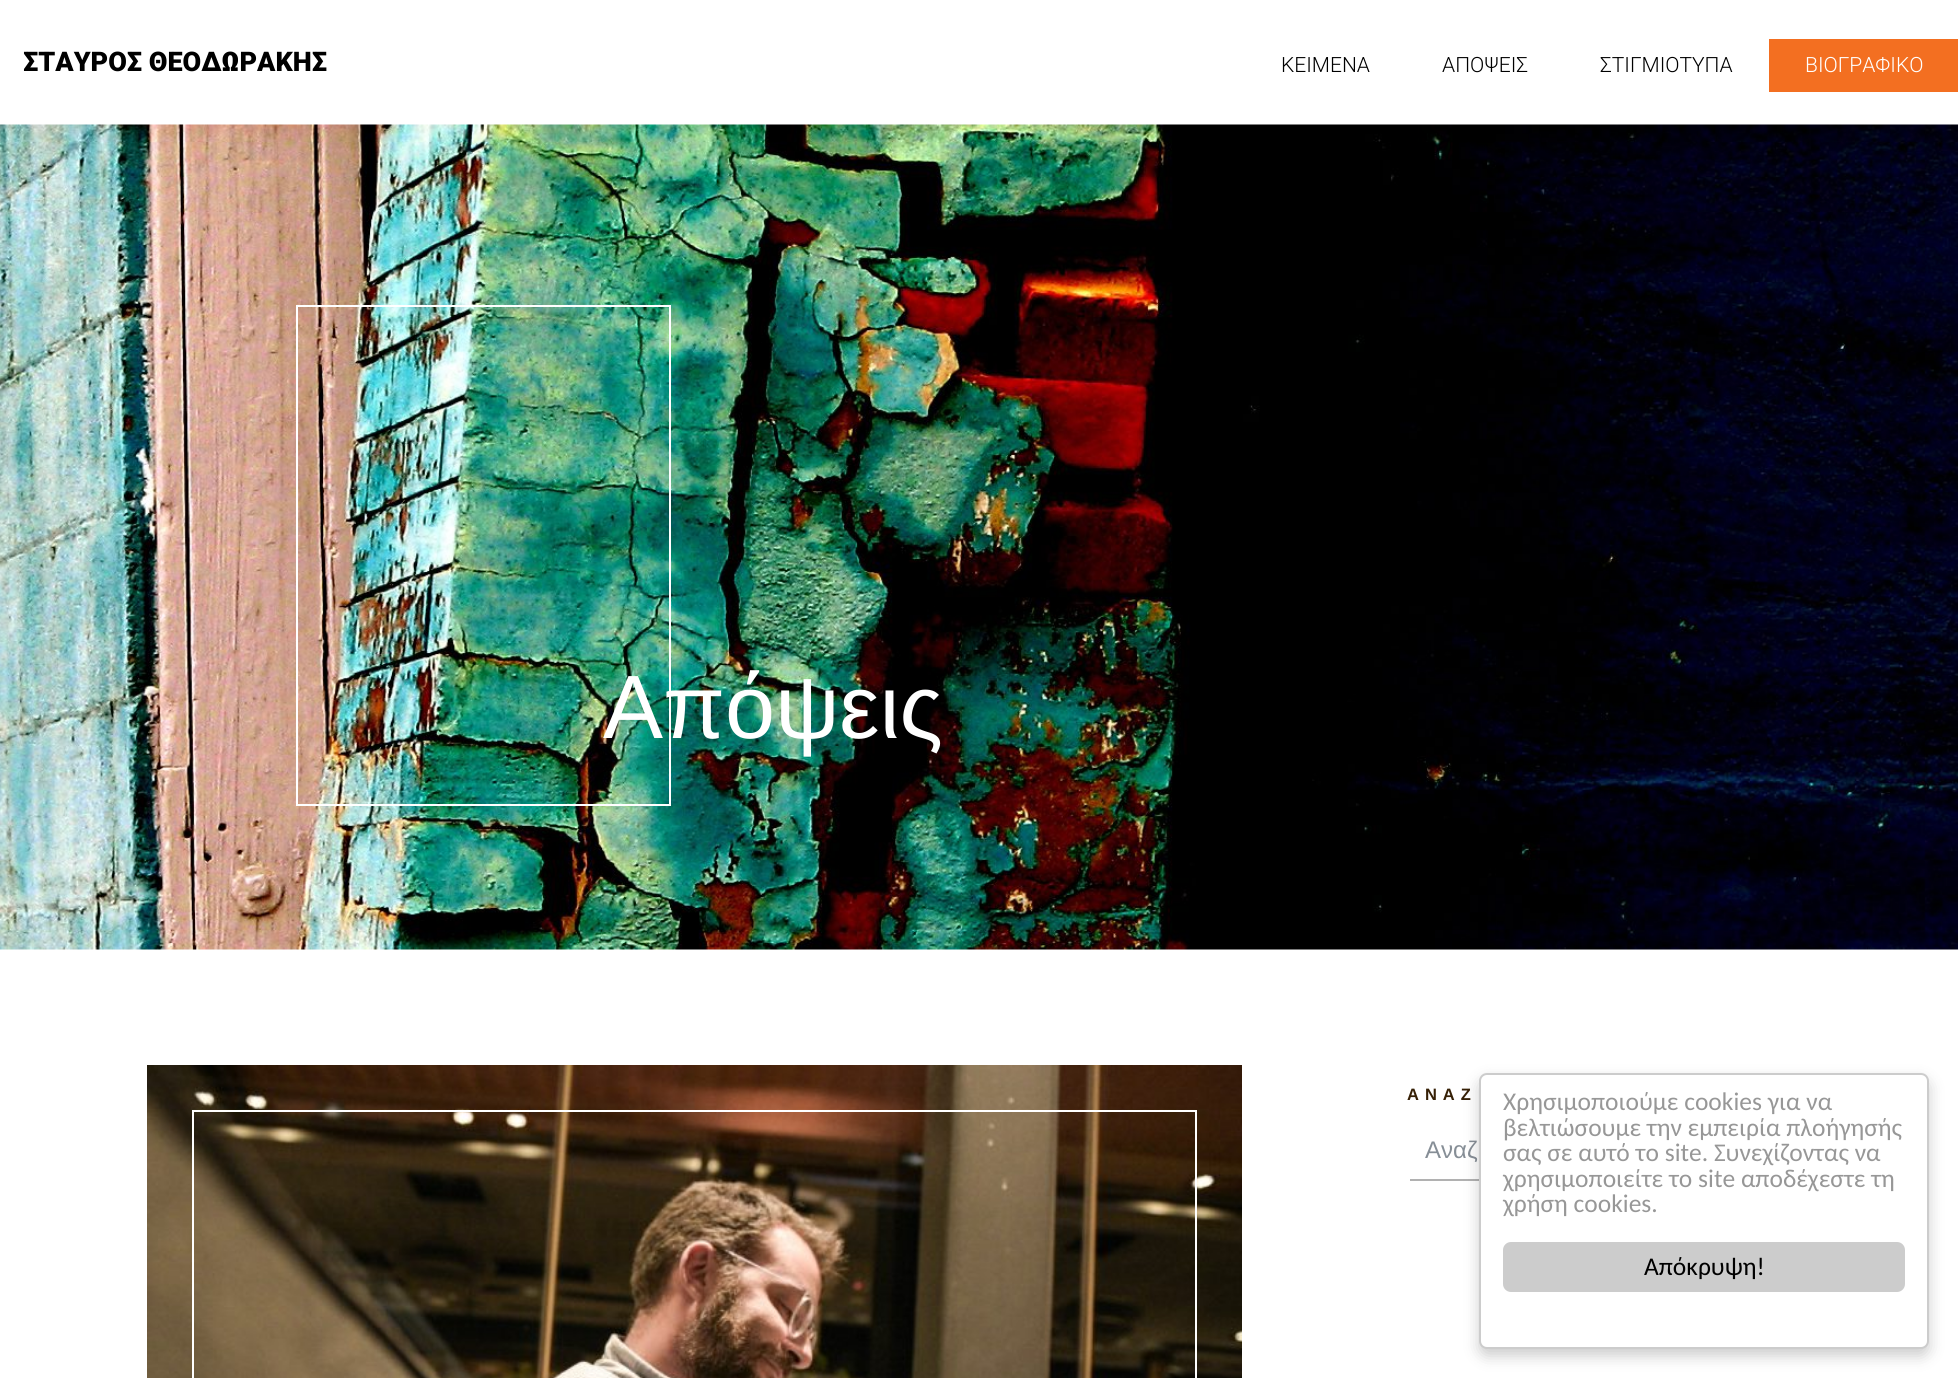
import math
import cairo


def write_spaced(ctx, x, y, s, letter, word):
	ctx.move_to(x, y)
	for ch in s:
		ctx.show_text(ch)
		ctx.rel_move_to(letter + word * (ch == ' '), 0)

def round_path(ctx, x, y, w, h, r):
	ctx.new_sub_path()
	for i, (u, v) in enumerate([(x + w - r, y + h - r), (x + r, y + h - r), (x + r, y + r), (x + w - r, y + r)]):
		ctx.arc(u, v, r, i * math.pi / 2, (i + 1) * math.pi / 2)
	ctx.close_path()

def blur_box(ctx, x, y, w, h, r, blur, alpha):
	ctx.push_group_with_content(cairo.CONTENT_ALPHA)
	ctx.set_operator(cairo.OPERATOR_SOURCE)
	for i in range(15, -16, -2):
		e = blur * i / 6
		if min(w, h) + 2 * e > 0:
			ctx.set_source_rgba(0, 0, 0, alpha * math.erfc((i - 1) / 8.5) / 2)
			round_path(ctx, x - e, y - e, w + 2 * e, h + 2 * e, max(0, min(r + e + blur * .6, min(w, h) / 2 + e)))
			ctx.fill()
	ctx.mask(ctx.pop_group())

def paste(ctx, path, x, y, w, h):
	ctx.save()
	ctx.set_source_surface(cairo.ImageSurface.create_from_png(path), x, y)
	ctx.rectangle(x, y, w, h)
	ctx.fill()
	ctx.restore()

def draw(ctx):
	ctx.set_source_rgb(1, 1, 1)
	ctx.paint()
	ctx.select_font_face('Roboto Black')
	ctx.set_font_size(27)
	ctx.set_source_rgb(0, 0, 0)
	ctx.move_to(23, 71)
	ctx.show_text('ΣΤΑΥΡΟΣ ΘΕΟΔΩΡΑΚΗΣ')
	ctx.select_font_face('Roboto Light')
	ctx.set_font_size(21)
	for x, y, s in [
		(1281, 72, 'KEIMENA'),
		(1442, 72, 'ΑΠΟΨΕΙΣ'),
		(1600, 72, 'ΣΤΙΓΜΙΟΤΥΠΑ'),
	]:
		ctx.move_to(x, y)
		ctx.show_text(s)
	ctx.set_source_rgb(0.953, 0.435, 0.129)
	ctx.rectangle(1769, 39, 189, 53)
	ctx.fill()
	ctx.set_source_rgb(1, 1, 1)
	ctx.move_to(1805, 72)
	ctx.show_text('ΒΙΟΓΡΑΦΙΚΟ')
	paste(ctx, 'media/1.png', 0, 124, 1958, 826)
	ctx.rectangle(297, 306, 373, 499)
	ctx.stroke()
	ctx.select_font_face('Liberation Sans')
	ctx.set_font_size(90)
	ctx.move_to(603, 738)
	ctx.show_text('Απόψεις')
	paste(ctx, 'media/2.png', 147, 1065, 1095, 313)
	ctx.rectangle(193, 1111, 1003, 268)
	ctx.stroke()
	ctx.select_font_face('Liberation Sans', cairo.FONT_SLANT_NORMAL, cairo.FONT_WEIGHT_BOLD)
	ctx.set_font_size(16.5)
	ctx.set_source_rgb(0.212, 0.125, 0.027)
	write_spaced(ctx, 1407, 1100, 'ANAZ', 6, 0)
	ctx.set_source_rgb(0.694, 0.694, 0.694)
	ctx.rectangle(1410, 1179, 69, 2)
	ctx.fill()
	ctx.select_font_face('Liberation Sans')
	ctx.set_font_size(24)
	ctx.set_source_rgb(0.525, 0.557, 0.588)
	ctx.move_to(1425, 1158)
	ctx.show_text('Αναζ')
	ctx.set_source_rgb(0, 0, 0)
	blur_box(ctx, 1479, 1080, 450, 276, 8, 7.5, 0.2)
	ctx.set_source_rgb(1, 1, 1)
	round_path(ctx, 1480, 1074, 448, 274, 7)
	ctx.fill_preserve()
	ctx.set_source_rgb(0.8, 0.8, 0.8)
	ctx.stroke()
	ctx.select_font_face('Carlito')
	ctx.set_font_size(25.5)
	ctx.set_source_rgb(0.592, 0.592, 0.592)
	for x, y, s in [
		(1503, 1110, 'Χρησιμοποιούμε cookies για να'),
		(1503, 1136, 'βελτιώσουμε την εμπειρία πλοήγησής'),
		(1503, 1161, 'σας σε αυτό το site. Συνεχίζοντας να'),
		(1503, 1187, 'χρησιμοποιείτε το site αποδέχεστε τη'),
		(1503, 1212, 'χρήση cookies.'),
	]:
		ctx.move_to(x, y)
		ctx.show_text(s)
	ctx.set_source_rgb(0.8, 0.8, 0.8)
	round_path(ctx, 1503, 1242, 402, 50, 8)
	ctx.fill()
	ctx.set_source_rgb(0, 0, 0)
	ctx.move_to(1644, 1275)
	ctx.show_text('Απόκρυψη!')


surface = cairo.ImageSurface(cairo.FORMAT_RGB24, 1958, 1378)
ctx = cairo.Context(surface)
options = cairo.FontOptions()
options.set_hint_metrics(cairo.HINT_METRICS_OFF)
options.set_hint_style(cairo.HINT_STYLE_NONE)
ctx.set_font_options(options)
ctx.set_miter_limit(4)
draw(ctx)
surface.write_to_png('image.png')
